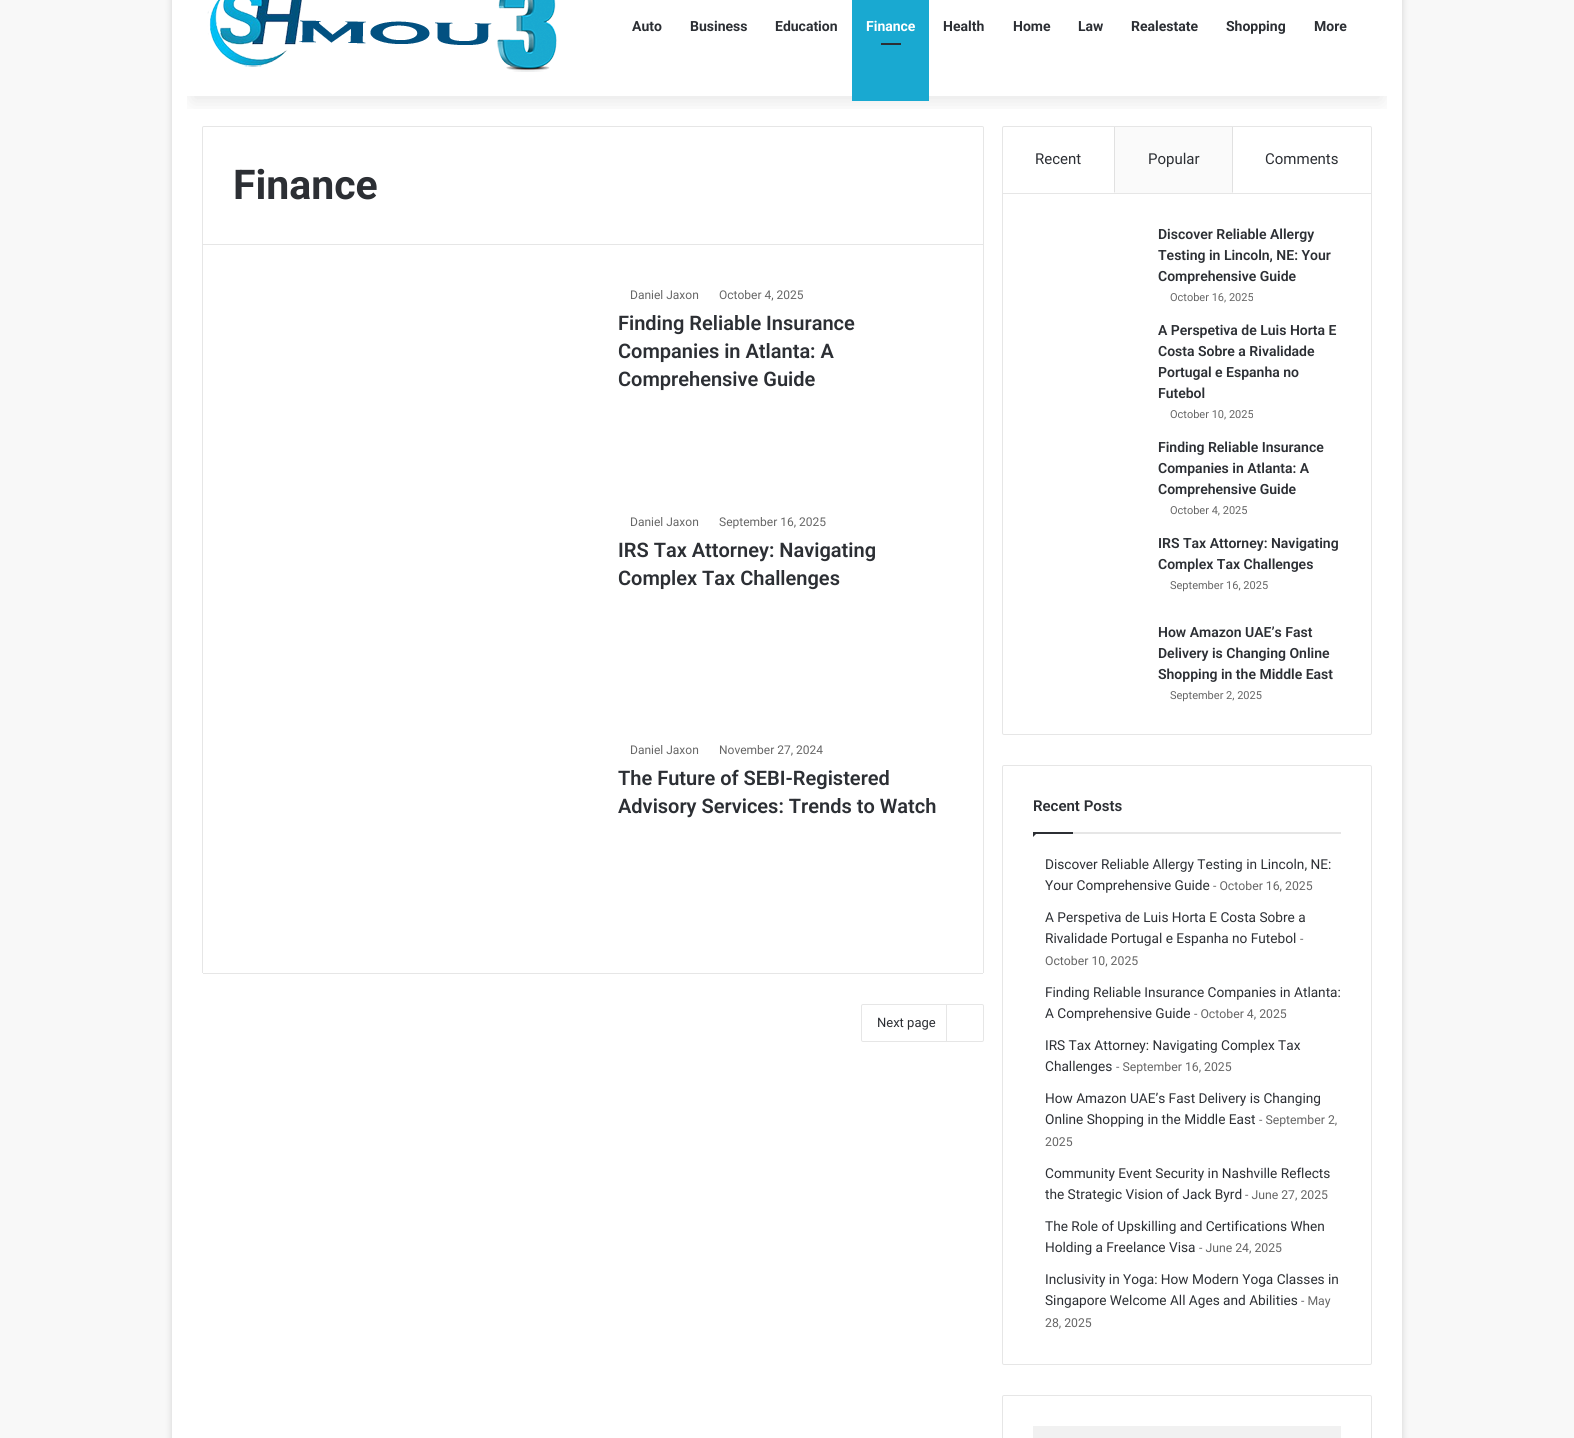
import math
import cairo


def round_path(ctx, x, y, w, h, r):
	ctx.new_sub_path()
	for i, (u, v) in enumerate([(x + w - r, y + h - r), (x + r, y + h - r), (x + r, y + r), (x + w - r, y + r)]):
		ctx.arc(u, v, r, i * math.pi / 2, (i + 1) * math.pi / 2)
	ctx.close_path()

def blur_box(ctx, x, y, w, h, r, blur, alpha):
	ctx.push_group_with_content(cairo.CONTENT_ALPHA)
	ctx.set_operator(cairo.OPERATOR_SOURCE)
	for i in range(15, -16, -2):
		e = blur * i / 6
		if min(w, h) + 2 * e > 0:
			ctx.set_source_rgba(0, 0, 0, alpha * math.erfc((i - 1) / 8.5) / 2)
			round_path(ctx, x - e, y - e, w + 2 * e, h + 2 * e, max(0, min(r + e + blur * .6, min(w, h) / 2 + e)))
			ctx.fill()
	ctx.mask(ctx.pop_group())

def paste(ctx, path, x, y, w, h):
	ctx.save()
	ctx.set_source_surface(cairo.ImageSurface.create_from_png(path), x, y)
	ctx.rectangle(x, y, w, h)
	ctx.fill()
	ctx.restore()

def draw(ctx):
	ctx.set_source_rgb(0.969, 0.969, 0.969)
	ctx.paint()
	ctx.set_source_rgb(0.671, 0.671, 0.671)
	blur_box(ctx, 172, -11, 1230, 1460, 0, 3.5, 0.5)
	ctx.set_source_rgb(1, 1, 1)
	ctx.rectangle(172, 0, 1230, 1438)
	ctx.fill()
	ctx.new_path()
	ctx.move_to(204, 126.5)
	ctx.line_to(982, 126.5)
	ctx.curve_to(983, 126.5, 983.5, 127, 983.5, 128)
	ctx.line_to(983.5, 244.5)
	ctx.line_to(202.5, 244.5)
	ctx.line_to(202.5, 128)
	ctx.curve_to(202.5, 127, 203, 126.5, 204, 126.5)
	ctx.close_path()
	ctx.set_source_rgb(0.902, 0.902, 0.902)
	ctx.set_line_width(1)
	ctx.stroke()
	round_path(ctx, 1002.5, 126.5, 369, 608, 1.5)
	ctx.stroke()
	ctx.set_source_rgb(0.882, 0.882, 0.882)
	ctx.new_path()
	ctx.move_to(1115, 127)
	ctx.line_to(1115, 193)
	ctx.line_to(1114, 192)
	ctx.line_to(1114, 127)
	ctx.close_path()
	ctx.fill()
	ctx.set_source_rgb(0.98, 0.98, 0.98)
	ctx.rectangle(1115, 127, 118, 66)
	ctx.fill()
	ctx.set_source_rgb(0.882, 0.882, 0.882)
	ctx.new_path()
	ctx.move_to(1233, 127)
	ctx.line_to(1233, 193)
	ctx.line_to(1232, 192)
	ctx.line_to(1232, 127)
	ctx.close_path()
	ctx.fill()
	ctx.save()
	ctx.rectangle(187, 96, 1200, 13)
	ctx.clip()
	ctx.set_source_rgb(0, 0, 0)
	blur_box(ctx, 192, 2, 1190, 99, 0, 10, 0.1)
	ctx.restore()
	paste(ctx, 'media/1.png', 207, 0, 350, 72)
	ctx.select_font_face('Roboto', cairo.FONT_SLANT_NORMAL, cairo.FONT_WEIGHT_BOLD)
	ctx.set_font_size(14)
	ctx.set_source_rgb(0.173, 0.184, 0.204)
	for x, y, s in [
		(632, 31, 'Auto'),
		(690, 31, 'Business'),
		(775, 31, 'Education'),
	]:
		ctx.move_to(x, y)
		ctx.show_text(s)
	ctx.set_source_rgb(0.098, 0.663, 0.82)
	ctx.rectangle(852, 0, 77, 101)
	ctx.fill()
	ctx.set_source_rgb(1, 1, 1)
	ctx.move_to(866, 31)
	ctx.show_text('Finance')
	ctx.set_source_rgb(0.173, 0.184, 0.204)
	ctx.rectangle(881, 43, 20, 2)
	ctx.fill()
	for x, y, s in [
		(943, 31, 'Health'),
		(1013, 31, 'Home'),
		(1078, 31, 'Law'),
		(1131, 31, 'Realestate'),
		(1226, 31, 'Shopping'),
		(1314, 31, 'More'),
	]:
		ctx.move_to(x, y)
		ctx.show_text(s)
	ctx.set_font_size(41)
	ctx.move_to(233, 199)
	ctx.show_text('Finance')
	ctx.set_source_rgb(0.902, 0.902, 0.902)
	ctx.rectangle(983, 245, 1, 728)
	ctx.rectangle(203, 973, 780, 1)
	ctx.rectangle(202, 245, 1, 728)
	ctx.fill()
	ctx.select_font_face('Roboto')
	ctx.set_font_size(12)
	ctx.set_source_rgb(0.4, 0.4, 0.4)
	ctx.move_to(630, 299)
	ctx.show_text('Daniel Jaxon')
	ctx.move_to(719, 299)
	ctx.show_text('October 4, 2025')
	ctx.select_font_face('Roboto SemiBold')
	ctx.set_font_size(20)
	ctx.set_source_rgb(0.173, 0.184, 0.204)
	for x, y, s in [
		(618, 330, 'Finding Reliable Insurance'),
		(618, 358, 'Companies in Atlanta: A'),
		(618, 386, 'Comprehensive Guide'),
	]:
		ctx.move_to(x, y)
		ctx.show_text(s)
	ctx.select_font_face('Roboto')
	ctx.set_font_size(12)
	ctx.set_source_rgb(0.4, 0.4, 0.4)
	ctx.move_to(630, 526)
	ctx.show_text('Daniel Jaxon')
	ctx.move_to(719, 526)
	ctx.show_text('September 16, 2025')
	ctx.select_font_face('Roboto SemiBold')
	ctx.set_font_size(20)
	ctx.set_source_rgb(0.173, 0.184, 0.204)
	ctx.move_to(618, 557)
	ctx.show_text('IRS Tax Attorney: Navigating')
	ctx.move_to(618, 585)
	ctx.show_text('Complex Tax Challenges')
	ctx.select_font_face('Roboto')
	ctx.set_font_size(12)
	ctx.set_source_rgb(0.4, 0.4, 0.4)
	ctx.move_to(630, 754)
	ctx.show_text('Daniel Jaxon')
	ctx.move_to(719, 754)
	ctx.show_text('November 27, 2024')
	ctx.select_font_face('Roboto SemiBold')
	ctx.set_font_size(20)
	ctx.set_source_rgb(0.173, 0.184, 0.204)
	ctx.move_to(618, 785)
	ctx.show_text('The Future of SEBI-Registered')
	ctx.move_to(618, 813)
	ctx.show_text('Advisory Services: Trends to Watch')
	round_path(ctx, 861.5, 1004.5, 122, 37, 1.5)
	ctx.set_source_rgb(0.902, 0.902, 0.902)
	ctx.stroke()
	ctx.select_font_face('Roboto')
	ctx.set_font_size(13)
	ctx.set_source_rgb(0.173, 0.184, 0.204)
	ctx.move_to(877, 1027)
	ctx.show_text('Next page')
	ctx.set_source_rgb(0.902, 0.902, 0.902)
	ctx.rectangle(946, 1005, 1, 36)
	ctx.fill()
	ctx.rectangle(1003, 193, 368, 1)
	ctx.fill()
	ctx.set_font_size(15)
	ctx.set_source_rgb(0.173, 0.184, 0.204)
	for x, y, s in [
		(1035, 164, 'Recent'),
		(1148, 164, 'Popular'),
		(1265, 164, 'Comments'),
	]:
		ctx.move_to(x, y)
		ctx.show_text(s)
	ctx.select_font_face('Roboto SemiBold')
	ctx.set_font_size(14)
	for x, y, s in [
		(1158, 239, 'Discover Reliable Allergy'),
		(1158, 260, 'Testing in Lincoln, NE: Your'),
		(1158, 281, 'Comprehensive Guide'),
	]:
		ctx.move_to(x, y)
		ctx.show_text(s)
	ctx.select_font_face('Roboto')
	ctx.set_font_size(11)
	ctx.set_source_rgb(0.4, 0.4, 0.4)
	ctx.move_to(1170, 301)
	ctx.show_text('October 16, 2025')
	ctx.select_font_face('Roboto SemiBold')
	ctx.set_font_size(14)
	ctx.set_source_rgb(0.173, 0.184, 0.204)
	for x, y, s in [
		(1158, 335, 'A Perspetiva de Luis Horta E'),
		(1158, 356, 'Costa Sobre a Rivalidade'),
		(1158, 377, 'Portugal e Espanha no'),
		(1158, 398, 'Futebol'),
	]:
		ctx.move_to(x, y)
		ctx.show_text(s)
	ctx.select_font_face('Roboto')
	ctx.set_font_size(11)
	ctx.set_source_rgb(0.4, 0.4, 0.4)
	ctx.move_to(1170, 418)
	ctx.show_text('October 10, 2025')
	ctx.select_font_face('Roboto SemiBold')
	ctx.set_font_size(14)
	ctx.set_source_rgb(0.173, 0.184, 0.204)
	for x, y, s in [
		(1158, 452, 'Finding Reliable Insurance'),
		(1158, 473, 'Companies in Atlanta: A'),
		(1158, 494, 'Comprehensive Guide'),
	]:
		ctx.move_to(x, y)
		ctx.show_text(s)
	ctx.select_font_face('Roboto')
	ctx.set_font_size(11)
	ctx.set_source_rgb(0.4, 0.4, 0.4)
	ctx.move_to(1170, 514)
	ctx.show_text('October 4, 2025')
	ctx.select_font_face('Roboto SemiBold')
	ctx.set_font_size(14)
	ctx.set_source_rgb(0.173, 0.184, 0.204)
	ctx.move_to(1158, 548)
	ctx.show_text('IRS Tax Attorney: Navigating')
	ctx.move_to(1158, 569)
	ctx.show_text('Complex Tax Challenges')
	ctx.select_font_face('Roboto')
	ctx.set_font_size(11)
	ctx.set_source_rgb(0.4, 0.4, 0.4)
	ctx.move_to(1170, 589)
	ctx.show_text('September 16, 2025')
	ctx.select_font_face('Roboto SemiBold')
	ctx.set_font_size(14)
	ctx.set_source_rgb(0.173, 0.184, 0.204)
	for x, y, s in [
		(1158, 637, 'How Amazon UAE’s Fast'),
		(1158, 658, 'Delivery is Changing Online'),
		(1158, 679, 'Shopping in the Middle East'),
	]:
		ctx.move_to(x, y)
		ctx.show_text(s)
	ctx.select_font_face('Roboto')
	ctx.set_font_size(11)
	ctx.set_source_rgb(0.4, 0.4, 0.4)
	ctx.move_to(1170, 699)
	ctx.show_text('September 2, 2025')
	round_path(ctx, 1002.5, 765.5, 369, 599, 1.5)
	ctx.set_source_rgb(0.902, 0.902, 0.902)
	ctx.stroke()
	ctx.rectangle(1073, 832, 268, 2)
	ctx.fill()
	ctx.select_font_face('Roboto SemiBold')
	ctx.set_font_size(15)
	ctx.set_source_rgb(0.173, 0.184, 0.204)
	ctx.move_to(1033, 811)
	ctx.show_text('Recent Posts')
	ctx.new_path()
	ctx.move_to(1033, 832)
	ctx.line_to(1038, 832)
	ctx.line_to(1033, 837)
	ctx.close_path()
	ctx.fill()
	ctx.rectangle(1033, 832, 40, 2)
	ctx.fill()
	ctx.select_font_face('Roboto')
	ctx.set_font_size(13.65)
	ctx.move_to(1045, 869)
	ctx.show_text('Discover Reliable Allergy Testing in Lincoln, NE:')
	ctx.move_to(1045, 890)
	ctx.show_text('Your Comprehensive Guide')
	ctx.set_font_size(12.25)
	ctx.set_source_rgb(0.4, 0.4, 0.4)
	ctx.move_to(1213, 890)
	ctx.show_text('- October 16, 2025')
	ctx.set_font_size(13.65)
	ctx.set_source_rgb(0.173, 0.184, 0.204)
	ctx.move_to(1045, 922)
	ctx.show_text('A Perspetiva de Luis Horta E Costa Sobre a')
	ctx.move_to(1045, 943)
	ctx.show_text('Rivalidade Portugal e Espanha no Futebol')
	ctx.set_font_size(12.25)
	ctx.set_source_rgb(0.4, 0.4, 0.4)
	ctx.move_to(1300, 943)
	ctx.show_text('-')
	ctx.move_to(1045, 965)
	ctx.show_text('October 10, 2025')
	ctx.set_font_size(13.65)
	ctx.set_source_rgb(0.173, 0.184, 0.204)
	ctx.move_to(1045, 997)
	ctx.show_text('Finding Reliable Insurance Companies in Atlanta:')
	ctx.move_to(1045, 1018)
	ctx.show_text('A Comprehensive Guide')
	ctx.set_font_size(12.25)
	ctx.set_source_rgb(0.4, 0.4, 0.4)
	ctx.move_to(1194, 1018)
	ctx.show_text('- October 4, 2025')
	ctx.set_font_size(13.65)
	ctx.set_source_rgb(0.173, 0.184, 0.204)
	ctx.move_to(1045, 1050)
	ctx.show_text('IRS Tax Attorney: Navigating Complex Tax')
	ctx.move_to(1045, 1071)
	ctx.show_text('Challenges')
	ctx.set_font_size(12.25)
	ctx.set_source_rgb(0.4, 0.4, 0.4)
	ctx.move_to(1116, 1071)
	ctx.show_text('- September 16, 2025')
	ctx.set_font_size(13.65)
	ctx.set_source_rgb(0.173, 0.184, 0.204)
	ctx.move_to(1045, 1103)
	ctx.show_text('How Amazon UAE’s Fast Delivery is Changing')
	ctx.move_to(1045, 1124)
	ctx.show_text('Online Shopping in the Middle East')
	ctx.set_font_size(12.25)
	ctx.set_source_rgb(0.4, 0.4, 0.4)
	ctx.move_to(1259, 1124)
	ctx.show_text('- September 2,')
	ctx.move_to(1045, 1146)
	ctx.show_text('2025')
	ctx.set_font_size(13.65)
	ctx.set_source_rgb(0.173, 0.184, 0.204)
	ctx.move_to(1045, 1178)
	ctx.show_text('Community Event Security in Nashville Reflects')
	ctx.move_to(1045, 1199)
	ctx.show_text('the Strategic Vision of Jack Byrd')
	ctx.set_font_size(12.25)
	ctx.set_source_rgb(0.4, 0.4, 0.4)
	ctx.move_to(1245, 1199)
	ctx.show_text('- June 27, 2025')
	ctx.set_font_size(13.65)
	ctx.set_source_rgb(0.173, 0.184, 0.204)
	ctx.move_to(1045, 1231)
	ctx.show_text('The Role of Upskilling and Certifications When')
	ctx.move_to(1045, 1252)
	ctx.show_text('Holding a Freelance Visa')
	ctx.set_font_size(12.25)
	ctx.set_source_rgb(0.4, 0.4, 0.4)
	ctx.move_to(1199, 1252)
	ctx.show_text('- June 24, 2025')
	ctx.set_font_size(13.65)
	ctx.set_source_rgb(0.173, 0.184, 0.204)
	ctx.move_to(1045, 1284)
	ctx.show_text('Inclusivity in Yoga: How Modern Yoga Classes in')
	ctx.move_to(1045, 1305)
	ctx.show_text('Singapore Welcome All Ages and Abilities')
	ctx.set_font_size(12.25)
	ctx.set_source_rgb(0.4, 0.4, 0.4)
	ctx.move_to(1301, 1305)
	ctx.show_text('- May')
	ctx.move_to(1045, 1327)
	ctx.show_text('28, 2025')
	round_path(ctx, 1002.5, 1395.5, 369, 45, 1.5)
	ctx.set_source_rgb(0.902, 0.902, 0.902)
	ctx.stroke()
	ctx.set_source_rgb(0.945, 0.945, 0.945)
	ctx.rectangle(1033, 1426, 308, 12)
	ctx.fill()


surface = cairo.ImageSurface(cairo.FORMAT_RGB24, 1574, 1438)
ctx = cairo.Context(surface)
options = cairo.FontOptions()
options.set_hint_metrics(cairo.HINT_METRICS_OFF)
options.set_hint_style(cairo.HINT_STYLE_NONE)
ctx.set_font_options(options)
ctx.set_miter_limit(4)
draw(ctx)
surface.write_to_png('image.png')
